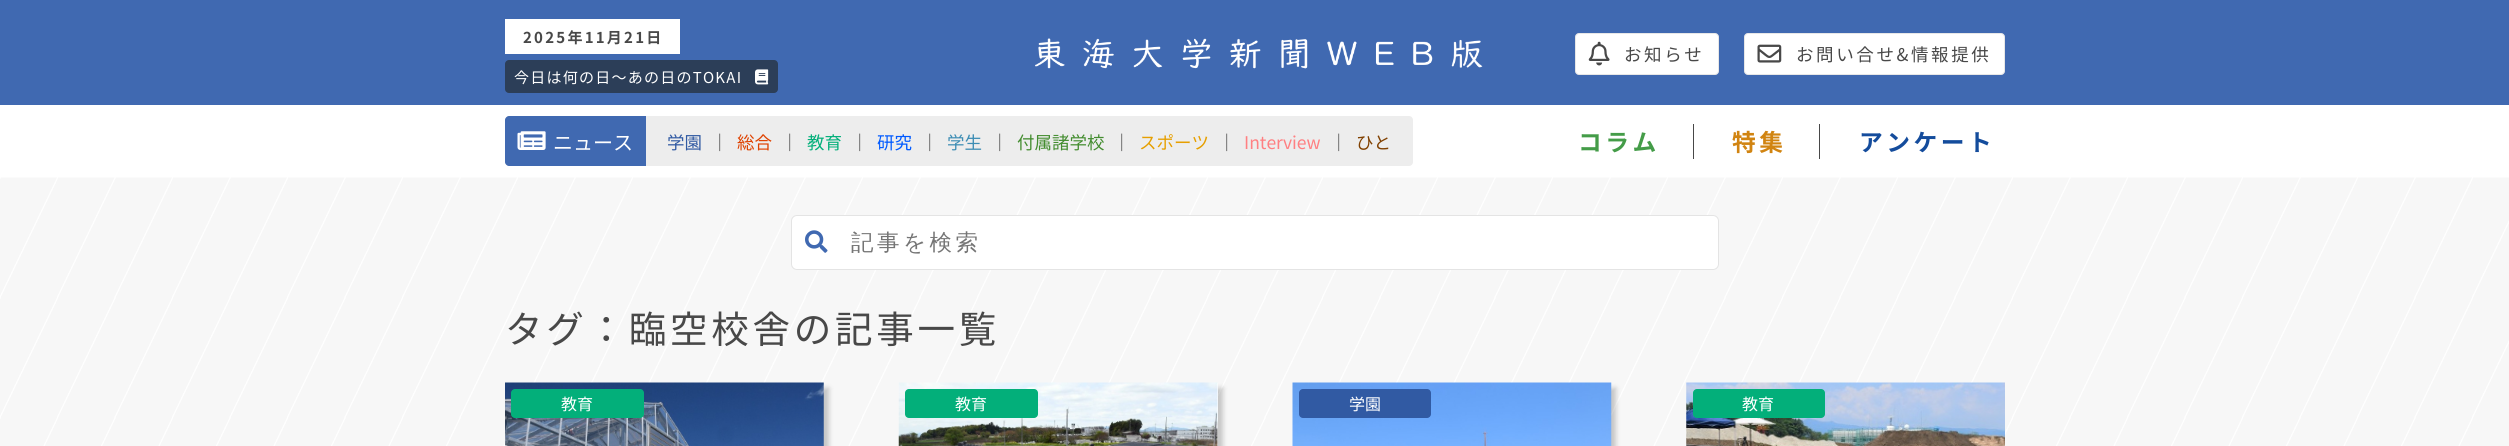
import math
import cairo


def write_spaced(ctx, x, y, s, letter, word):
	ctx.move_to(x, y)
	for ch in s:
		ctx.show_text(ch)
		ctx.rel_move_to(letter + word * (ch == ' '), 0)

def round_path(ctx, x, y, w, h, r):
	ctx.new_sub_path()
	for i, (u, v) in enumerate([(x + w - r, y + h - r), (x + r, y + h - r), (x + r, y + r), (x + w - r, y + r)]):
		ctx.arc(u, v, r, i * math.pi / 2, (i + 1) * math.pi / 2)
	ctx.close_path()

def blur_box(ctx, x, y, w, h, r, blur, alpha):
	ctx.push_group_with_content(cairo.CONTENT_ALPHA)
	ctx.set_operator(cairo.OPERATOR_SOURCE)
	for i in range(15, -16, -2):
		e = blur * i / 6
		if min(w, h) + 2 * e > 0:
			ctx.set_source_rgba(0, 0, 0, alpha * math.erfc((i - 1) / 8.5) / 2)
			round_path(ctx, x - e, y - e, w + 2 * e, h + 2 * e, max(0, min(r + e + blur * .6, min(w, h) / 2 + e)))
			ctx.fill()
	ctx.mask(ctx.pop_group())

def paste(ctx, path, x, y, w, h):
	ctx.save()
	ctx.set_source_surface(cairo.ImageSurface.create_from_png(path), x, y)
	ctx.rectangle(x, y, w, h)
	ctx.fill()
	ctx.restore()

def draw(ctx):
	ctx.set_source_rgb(0.251, 0.412, 0.694)
	ctx.paint()
	ctx.set_source_rgb(1, 1, 1)
	ctx.rectangle(505, 19, 175, 35)
	ctx.fill()
	ctx.select_font_face('Noto Sans JP', cairo.FONT_SLANT_NORMAL, cairo.FONT_WEIGHT_BOLD)
	ctx.set_font_size(15)
	ctx.set_source_rgb(0.282, 0.282, 0.282)
	write_spaced(ctx, 523, 43, '2025年11月21日', 2.25, 0)
	ctx.set_source_rgb(0.173, 0.243, 0.345)
	round_path(ctx, 505, 60, 273, 33, 4)
	ctx.fill()
	ctx.select_font_face('Noto Sans JP')
	ctx.set_source_rgb(1, 1, 1)
	write_spaced(ctx, 514, 83, '今日は何の日〜あの日のTOKAI', 1.25, 0)
	paste(ctx, 'media/1.png', 755, 69, 14, 16)
	paste(ctx, 'media/2.png', 1035, 38, 448, 31)
	round_path(ctx, 1575.5, 33.5, 143, 41, 3.5)
	ctx.fill_preserve()
	ctx.set_source_rgb(0.906, 0.906, 0.906)
	ctx.set_line_width(1)
	ctx.stroke()
	paste(ctx, 'media/3.png', 1588, 41, 22, 25)
	ctx.set_font_size(17.5)
	ctx.set_source_rgb(0.282, 0.282, 0.282)
	write_spaced(ctx, 1624, 61, 'お知らせ', 2.6, 0)
	ctx.set_source_rgb(1, 1, 1)
	round_path(ctx, 1744.5, 33.5, 260, 41, 3.5)
	ctx.fill_preserve()
	ctx.set_source_rgb(0.906, 0.906, 0.906)
	ctx.stroke()
	paste(ctx, 'media/4.png', 1757, 44, 25, 19)
	ctx.set_source_rgb(0.282, 0.282, 0.282)
	write_spaced(ctx, 1796, 61, 'お問い合せ&情報提供', 2.6, 0)
	ctx.set_source_rgb(1, 1, 1)
	ctx.rectangle(0, 105, 2509, 73)
	ctx.fill()
	ctx.set_source_rgb(0.929, 0.929, 0.929)
	round_path(ctx, 505, 116, 908, 50, 4)
	ctx.fill()
	ctx.set_source_rgb(0.251, 0.412, 0.694)
	ctx.new_path()
	ctx.move_to(509, 116)
	ctx.line_to(646, 116)
	ctx.line_to(646, 166)
	ctx.line_to(509, 166)
	ctx.curve_to(507, 166, 505, 164, 505, 162)
	ctx.line_to(505, 120)
	ctx.curve_to(505, 118, 507, 116, 509, 116)
	ctx.close_path()
	ctx.fill()
	paste(ctx, 'media/5.png', 517, 131, 29, 19)
	ctx.set_font_size(20)
	ctx.set_source_rgb(1, 1, 1)
	ctx.move_to(553, 150)
	ctx.show_text('ニュース')
	ctx.set_font_size(17.5)
	ctx.set_source_rgb(0.192, 0.353, 0.639)
	ctx.move_to(667, 149)
	ctx.show_text('学園')
	ctx.set_source_rgb(0.282, 0.282, 0.282)
	ctx.move_to(711, 149)
	ctx.show_text('｜')
	ctx.set_source_rgb(0.875, 0.259, 0)
	ctx.move_to(737, 149)
	ctx.show_text('総合')
	ctx.set_source_rgb(0.282, 0.282, 0.282)
	ctx.move_to(781, 149)
	ctx.show_text('｜')
	ctx.set_source_rgb(0.012, 0.686, 0.478)
	ctx.move_to(807, 149)
	ctx.show_text('教育')
	ctx.set_source_rgb(0.282, 0.282, 0.282)
	ctx.move_to(851, 149)
	ctx.show_text('｜')
	ctx.set_source_rgb(0, 0.353, 1)
	ctx.move_to(877, 149)
	ctx.show_text('研究')
	ctx.set_source_rgb(0.282, 0.282, 0.282)
	ctx.move_to(921, 149)
	ctx.show_text('｜')
	ctx.set_source_rgb(0.239, 0.553, 0.706)
	ctx.move_to(947, 149)
	ctx.show_text('学生')
	ctx.set_source_rgb(0.282, 0.282, 0.282)
	ctx.move_to(991, 149)
	ctx.show_text('｜')
	ctx.set_source_rgb(0.267, 0.553, 0.188)
	ctx.move_to(1017, 149)
	ctx.show_text('付属諸学校')
	ctx.set_source_rgb(0.282, 0.282, 0.282)
	ctx.move_to(1113, 149)
	ctx.show_text('｜')
	ctx.set_source_rgb(0.902, 0.624, 0)
	ctx.move_to(1139, 149)
	ctx.show_text('スポーツ')
	ctx.set_source_rgb(0.282, 0.282, 0.282)
	ctx.move_to(1218, 149)
	ctx.show_text('｜')
	ctx.set_source_rgb(1, 0.502, 0.51)
	ctx.move_to(1244, 149)
	ctx.show_text('Interview')
	ctx.set_source_rgb(0.282, 0.282, 0.282)
	ctx.move_to(1330, 149)
	ctx.show_text('｜')
	ctx.set_source_rgb(0.502, 0.251, 0)
	ctx.move_to(1356, 149)
	ctx.show_text('ひと')
	ctx.set_source_rgb(0.282, 0.282, 0.282)
	ctx.rectangle(1693, 124, 1, 35)
	ctx.fill()
	ctx.select_font_face('Noto Sans JP', cairo.FONT_SLANT_NORMAL, cairo.FONT_WEIGHT_BOLD)
	ctx.set_font_size(23.75)
	ctx.set_source_rgb(0.267, 0.612, 0.282)
	write_spaced(ctx, 1578, 151, 'コラム', 3.5, 0)
	ctx.set_source_rgb(0.282, 0.282, 0.282)
	ctx.rectangle(1819, 124, 1, 35)
	ctx.fill()
	ctx.set_source_rgb(0.82, 0.518, 0.067)
	write_spaced(ctx, 1732, 151, '特集', 3.5, 0)
	ctx.set_source_rgb(0.082, 0.298, 0.612)
	write_spaced(ctx, 1859, 151, 'アンケート', 3.5, 0)
	paste(ctx, 'media/6.png', 0, 177, 2509, 269)
	ctx.set_source_rgb(1, 1, 1)
	round_path(ctx, 791.5, 215.5, 927, 54, 5.5)
	ctx.fill_preserve()
	ctx.set_source_rgb(0.894, 0.894, 0.894)
	ctx.stroke()
	paste(ctx, 'media/7.png', 805, 230, 23, 23)
	ctx.select_font_face('WenQuanYi Zen Hei Medium')
	ctx.set_font_size(22.5)
	ctx.set_source_rgb(0.459, 0.459, 0.459)
	write_spaced(ctx, 851, 250, '記事を検索', 3.5, 0)
	ctx.select_font_face('Noto Sans JP')
	ctx.set_font_size(37.5)
	ctx.set_source_rgb(0.282, 0.282, 0.282)
	write_spaced(ctx, 505, 343, 'タグ：臨空校舎の記事一覧', 3.75, 0)
	ctx.set_source_rgb(0, 0, 0)
	blur_box(ctx, 510, 388, 319, 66, 0, 2.5, 0.2)
	paste(ctx, 'media/8.png', 505, 382, 319, 64)
	ctx.set_source_rgb(0.012, 0.686, 0.478)
	round_path(ctx, 511, 389, 133, 29, 4)
	ctx.fill()
	ctx.set_font_size(16)
	ctx.set_source_rgb(1, 1, 1)
	ctx.move_to(561, 410)
	ctx.show_text('教育')
	ctx.set_source_rgb(0, 0, 0)
	blur_box(ctx, 904, 388, 319, 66, 0, 2.5, 0.2)
	ctx.set_source_rgb(1, 1, 1)
	ctx.rectangle(1217, 383, 1, 63)
	ctx.fill()
	paste(ctx, 'media/9.png', 898, 382, 320, 64)
	ctx.set_source_rgb(0.012, 0.686, 0.478)
	round_path(ctx, 905, 389, 133, 29, 4)
	ctx.fill()
	ctx.set_source_rgb(1, 1, 1)
	ctx.move_to(955, 410)
	ctx.show_text('教育')
	ctx.set_source_rgb(0, 0, 0)
	blur_box(ctx, 1298, 388, 318, 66, 0, 2.5, 0.2)
	paste(ctx, 'media/10.png', 1292, 382, 320, 64)
	ctx.set_source_rgb(0.192, 0.353, 0.639)
	round_path(ctx, 1299, 389, 132, 29, 4)
	ctx.fill()
	ctx.set_source_rgb(1, 1, 1)
	ctx.move_to(1349, 410)
	ctx.show_text('学園')
	paste(ctx, 'media/11.png', 1686, 382, 319, 64)
	ctx.set_source_rgb(0.012, 0.686, 0.478)
	round_path(ctx, 1693, 389, 132, 29, 4)
	ctx.fill()
	ctx.set_source_rgb(1, 1, 1)
	ctx.move_to(1742, 410)
	ctx.show_text('教育')


surface = cairo.ImageSurface(cairo.FORMAT_RGB24, 2509, 446)
ctx = cairo.Context(surface)
options = cairo.FontOptions()
options.set_hint_metrics(cairo.HINT_METRICS_OFF)
options.set_hint_style(cairo.HINT_STYLE_NONE)
ctx.set_font_options(options)
ctx.set_miter_limit(4)
draw(ctx)
surface.write_to_png('image.png')
